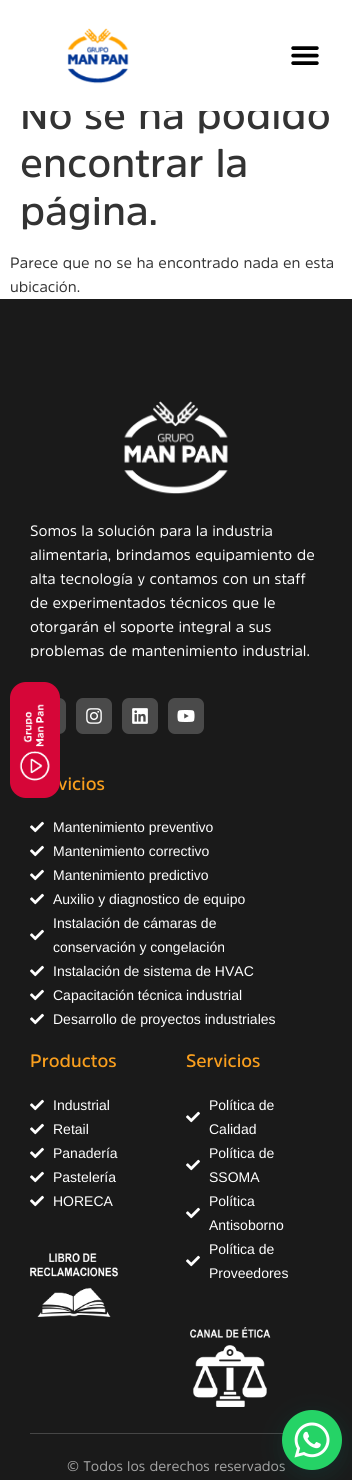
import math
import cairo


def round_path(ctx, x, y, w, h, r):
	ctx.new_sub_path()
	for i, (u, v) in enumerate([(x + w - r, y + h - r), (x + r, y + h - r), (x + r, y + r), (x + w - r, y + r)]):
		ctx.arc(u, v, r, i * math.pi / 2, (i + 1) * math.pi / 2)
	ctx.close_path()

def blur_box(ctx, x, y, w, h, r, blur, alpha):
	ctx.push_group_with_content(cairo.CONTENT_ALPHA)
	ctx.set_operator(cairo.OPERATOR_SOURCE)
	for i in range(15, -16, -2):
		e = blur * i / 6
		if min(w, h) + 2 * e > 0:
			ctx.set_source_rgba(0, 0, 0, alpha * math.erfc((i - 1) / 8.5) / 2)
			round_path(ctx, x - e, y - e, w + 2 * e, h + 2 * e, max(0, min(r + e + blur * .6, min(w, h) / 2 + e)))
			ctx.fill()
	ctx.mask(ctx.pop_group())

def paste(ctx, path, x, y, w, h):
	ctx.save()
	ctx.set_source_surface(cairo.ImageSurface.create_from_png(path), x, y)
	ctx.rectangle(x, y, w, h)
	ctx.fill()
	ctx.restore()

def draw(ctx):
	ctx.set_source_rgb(1, 1, 1)
	ctx.paint()
	ctx.select_font_face('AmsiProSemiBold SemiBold')
	ctx.set_font_size(40)
	ctx.set_source_rgb(0.2, 0.2, 0.2)
	ctx.move_to(20, 129)
	ctx.show_text('No se ha podido')
	ctx.set_source_rgb(1, 1, 1)
	ctx.rectangle(23, 100, 304, 11)
	ctx.fill()
	paste(ctx, 'media/1.png', 67, 28, 62, 56)
	paste(ctx, 'media/2.png', 291, 46, 28, 19)
	ctx.set_source_rgb(0.2, 0.2, 0.2)
	ctx.move_to(20, 177)
	ctx.show_text('encontrar la')
	ctx.move_to(20, 225)
	ctx.show_text('página.')
	ctx.select_font_face('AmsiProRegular')
	ctx.set_font_size(15)
	ctx.move_to(10, 268)
	ctx.show_text('Parece que no se ha encontrado nada en esta')
	ctx.move_to(10, 292)
	ctx.show_text('ubicación.')
	ctx.set_source_rgb(0.102, 0.102, 0.102)
	ctx.rectangle(0, 299, 352, 1181)
	ctx.fill()
	paste(ctx, 'media/3.png', 124, 401, 104, 93)
	ctx.set_source_rgb(1, 1, 1)
	for x, y, s in [
		(30, 536, 'Somos la solución para la industria'),
		(30, 560, 'alimentaria, brindamos equipamiento de'),
		(30, 584, 'alta tecnología y contamos con un staff'),
		(30, 608, 'de experimentados técnicos que le'),
		(30, 632, 'otorgarán el soporte integral a sus'),
		(30, 656, 'problemas de mantenimiento industrial.'),
	]:
		ctx.move_to(x, y)
		ctx.show_text(s)
	ctx.set_source_rgb(0.29, 0.29, 0.29)
	round_path(ctx, 30, 698, 36, 36, 7)
	ctx.fill()
	round_path(ctx, 76, 698, 36, 36, 7)
	ctx.fill()
	paste(ctx, 'media/4.png', 86, 708, 16, 16)
	round_path(ctx, 122, 698, 36, 36, 7)
	ctx.fill()
	paste(ctx, 'media/5.png', 132, 708, 16, 16)
	round_path(ctx, 168, 698, 36, 36, 7)
	ctx.fill()
	paste(ctx, 'media/6.png', 177, 710, 18, 12)
	ctx.select_font_face('AmsiProSemiBold SemiBold')
	ctx.set_font_size(18)
	ctx.set_source_rgb(0.98, 0.624, 0.114)
	ctx.move_to(58, 790)
	ctx.show_text('vicios')
	paste(ctx, 'media/7.png', 30, 821, 14, 12)
	ctx.select_font_face('Liberation Sans')
	ctx.set_font_size(14)
	ctx.set_source_rgb(1, 1, 1)
	ctx.move_to(53, 832)
	ctx.show_text('Mantenimiento preventivo')
	paste(ctx, 'media/7.png', 30, 845, 14, 12)
	ctx.move_to(53, 856)
	ctx.show_text('Mantenimiento correctivo')
	paste(ctx, 'media/7.png', 30, 869, 14, 12)
	ctx.move_to(53, 880)
	ctx.show_text('Mantenimiento predictivo')
	paste(ctx, 'media/7.png', 30, 893, 14, 12)
	ctx.move_to(53, 904)
	ctx.show_text('Auxilio y diagnostico de equipo')
	paste(ctx, 'media/7.png', 30, 929, 14, 12)
	ctx.move_to(53, 928)
	ctx.show_text('Instalación de cámaras de')
	ctx.move_to(53, 952)
	ctx.show_text('conservación y congelación')
	paste(ctx, 'media/7.png', 30, 965, 14, 12)
	ctx.move_to(53, 976)
	ctx.show_text('Instalación de sistema de HVAC')
	paste(ctx, 'media/7.png', 30, 989, 14, 12)
	ctx.move_to(53, 1000)
	ctx.show_text('Capacitación técnica industrial')
	paste(ctx, 'media/7.png', 30, 1013, 14, 12)
	ctx.move_to(53, 1024)
	ctx.show_text('Desarrollo de proyectos industriales')
	ctx.select_font_face('AmsiProSemiBold SemiBold')
	ctx.set_font_size(18)
	ctx.set_source_rgb(0.98, 0.624, 0.114)
	ctx.move_to(30, 1067)
	ctx.show_text('Productos')
	paste(ctx, 'media/7.png', 30, 1099, 14, 12)
	ctx.select_font_face('Liberation Sans')
	ctx.set_font_size(14)
	ctx.set_source_rgb(1, 1, 1)
	ctx.move_to(53, 1110)
	ctx.show_text('Industrial')
	paste(ctx, 'media/7.png', 30, 1123, 14, 12)
	ctx.move_to(53, 1134)
	ctx.show_text('Retail')
	paste(ctx, 'media/7.png', 30, 1147, 14, 12)
	ctx.move_to(53, 1158)
	ctx.show_text('Panadería')
	paste(ctx, 'media/7.png', 30, 1171, 14, 12)
	ctx.move_to(53, 1182)
	ctx.show_text('Pastelería')
	paste(ctx, 'media/7.png', 30, 1195, 14, 12)
	ctx.move_to(53, 1206)
	ctx.show_text('HORECA')
	paste(ctx, 'media/8.png', 30, 1253, 88, 64)
	ctx.select_font_face('AmsiProSemiBold SemiBold')
	ctx.set_font_size(18)
	ctx.set_source_rgb(0.98, 0.624, 0.114)
	ctx.move_to(186, 1067)
	ctx.show_text('Servicios')
	paste(ctx, 'media/7.png', 186, 1111, 14, 12)
	ctx.select_font_face('Liberation Sans')
	ctx.set_font_size(14)
	ctx.set_source_rgb(1, 1, 1)
	ctx.move_to(209, 1110)
	ctx.show_text('Política de')
	ctx.move_to(209, 1134)
	ctx.show_text('Calidad')
	paste(ctx, 'media/7.png', 186, 1159, 14, 12)
	ctx.move_to(209, 1158)
	ctx.show_text('Política de')
	ctx.move_to(209, 1182)
	ctx.show_text('SSOMA')
	paste(ctx, 'media/7.png', 186, 1207, 14, 12)
	ctx.move_to(209, 1206)
	ctx.show_text('Política')
	ctx.move_to(209, 1230)
	ctx.show_text('Antisoborno')
	paste(ctx, 'media/7.png', 186, 1255, 14, 12)
	ctx.move_to(209, 1254)
	ctx.show_text('Política de')
	ctx.move_to(209, 1278)
	ctx.show_text('Proveedores')
	paste(ctx, 'media/9.png', 190, 1327, 81, 80)
	ctx.set_source_rgb(0.275, 0.275, 0.275)
	ctx.rectangle(30, 1433, 253, 1)
	ctx.fill()
	ctx.select_font_face('AmsiProRegular')
	ctx.set_source_rgb(0.643, 0.643, 0.643)
	ctx.move_to(67, 1471)
	ctx.show_text('© Todos los derechos reservados')
	ctx.set_source_rgb(0.839, 0.027, 0.22)
	round_path(ctx, 10, 682, 50, 116, 16)
	ctx.fill()
	paste(ctx, 'media/10.png', 19, 704, 31, 77)
	ctx.set_source_rgb(0.027, 0.369, 0.329)
	blur_box(ctx, 283, 1416, 60, 60, 30, 12, 0.24)
	ctx.set_source_rgb(0.145, 0.827, 0.4)
	ctx.arc(312, 1440, 30, 0, 2 * math.pi)
	ctx.fill()
	paste(ctx, 'media/11.png', 294, 1422, 36, 36)


surface = cairo.ImageSurface(cairo.FORMAT_RGB24, 352, 1480)
ctx = cairo.Context(surface)
options = cairo.FontOptions()
options.set_hint_metrics(cairo.HINT_METRICS_OFF)
options.set_hint_style(cairo.HINT_STYLE_NONE)
ctx.set_font_options(options)
ctx.set_miter_limit(4)
draw(ctx)
surface.write_to_png('image.png')
